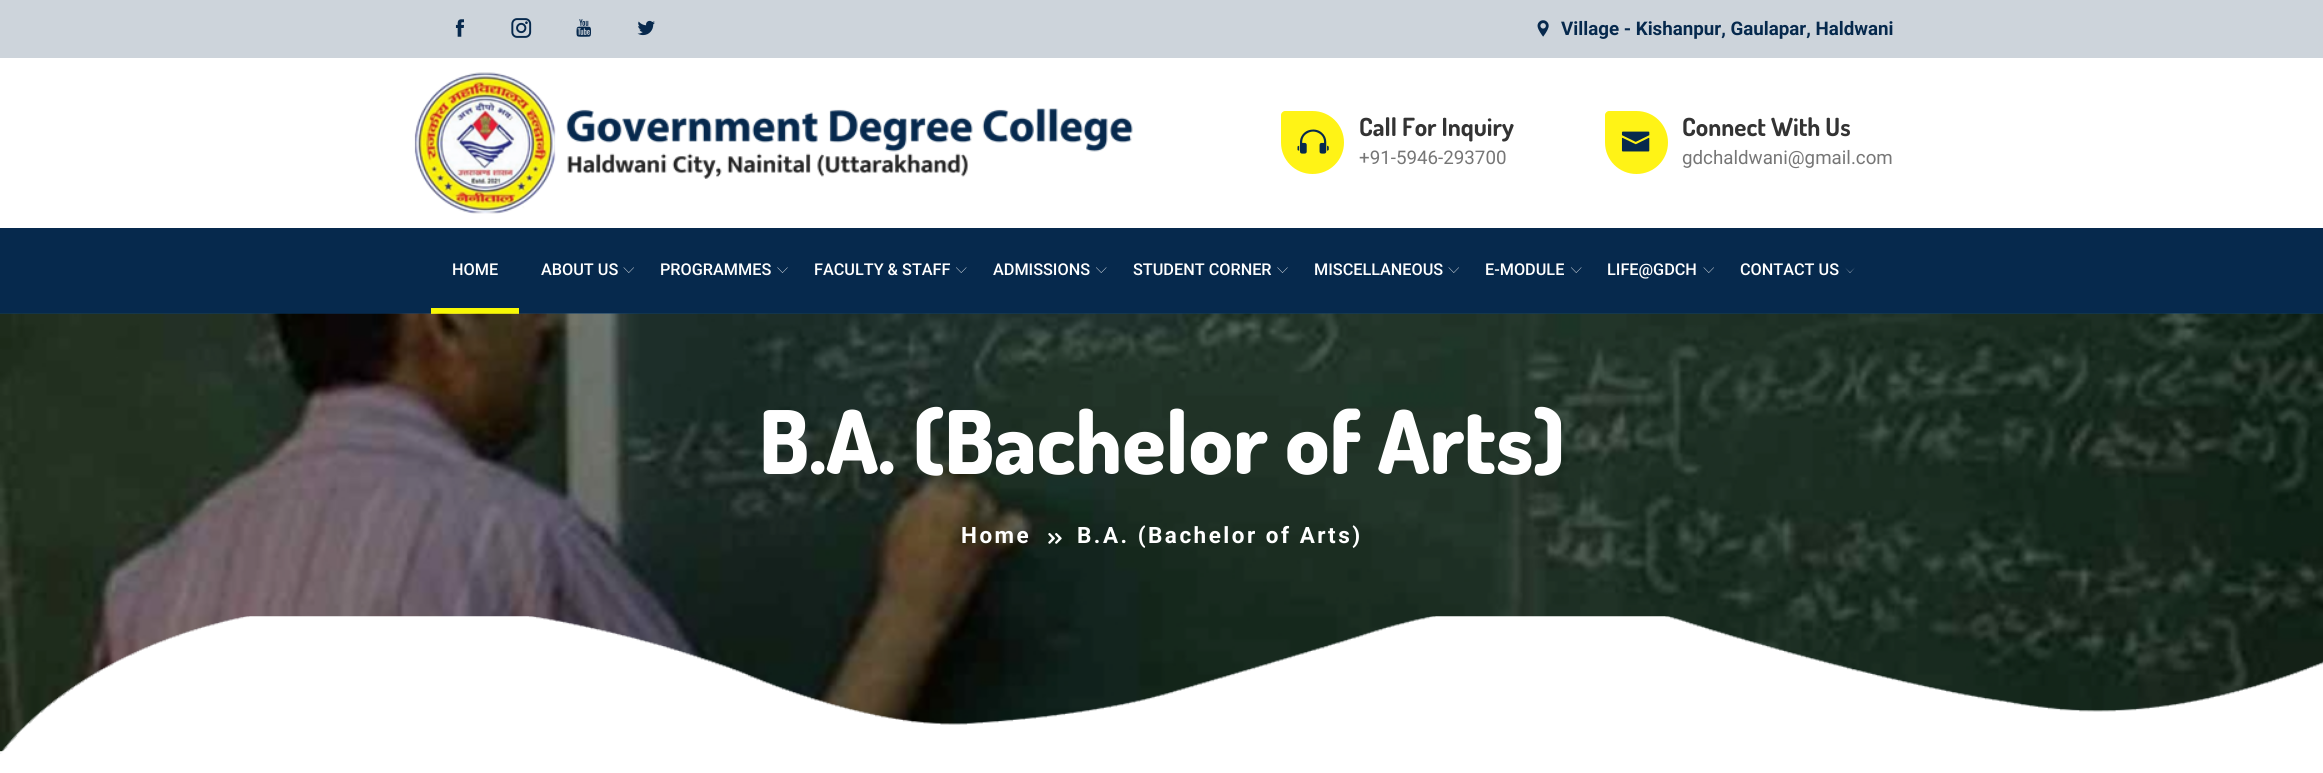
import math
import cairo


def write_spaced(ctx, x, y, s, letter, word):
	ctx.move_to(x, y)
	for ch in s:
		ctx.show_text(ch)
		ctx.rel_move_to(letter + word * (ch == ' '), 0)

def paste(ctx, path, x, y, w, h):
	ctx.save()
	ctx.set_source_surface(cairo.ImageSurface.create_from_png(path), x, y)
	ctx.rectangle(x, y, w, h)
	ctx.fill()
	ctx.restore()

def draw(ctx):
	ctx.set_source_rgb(1, 1, 1)
	ctx.paint()
	ctx.set_source_rgb(0.804, 0.831, 0.859)
	ctx.rectangle(0, 0, 2323, 58)
	ctx.fill()
	paste(ctx, 'media/1.png', 455, 19, 9, 18)
	paste(ctx, 'media/2.png', 511, 18, 21, 20)
	paste(ctx, 'media/3.png', 576, 19, 15, 18)
	paste(ctx, 'media/4.png', 637, 20, 18, 16)
	paste(ctx, 'media/5.png', 1537, 20, 12, 17)
	ctx.select_font_face('Roboto', cairo.FONT_SLANT_NORMAL, cairo.FONT_WEIGHT_BOLD)
	ctx.set_font_size(18.75)
	ctx.set_source_rgb(0.027, 0.161, 0.302)
	ctx.move_to(1561, 35)
	ctx.show_text('Village - Kishanpur, Gaulapar, Haldwani')
	paste(ctx, 'media/6.png', 414, 72, 719, 142)
	ctx.set_source_rgb(1, 0.953, 0.086)
	ctx.new_path()
	ctx.move_to(1285, 111)
	ctx.line_to(1312.5, 111)
	ctx.curve_to(1330, 111, 1344, 125, 1344, 142.5)
	ctx.curve_to(1344, 160, 1330, 174, 1312.5, 174)
	ctx.curve_to(1295, 174, 1281, 160, 1281, 142.5)
	ctx.line_to(1281, 115)
	ctx.curve_to(1281, 113, 1283, 111, 1285, 111)
	ctx.close_path()
	ctx.fill()
	paste(ctx, 'media/7.png', 1297, 129, 32, 25)
	ctx.select_font_face('Dosis', cairo.FONT_SLANT_NORMAL, cairo.FONT_WEIGHT_BOLD)
	ctx.set_font_size(25)
	ctx.set_source_rgb(0.2, 0.2, 0.2)
	ctx.move_to(1359, 136)
	ctx.show_text('Call For Inquiry')
	ctx.select_font_face('Roboto')
	ctx.set_font_size(18.75)
	ctx.set_source_rgb(0.463, 0.463, 0.463)
	ctx.move_to(1359, 164)
	ctx.show_text('+91-5946-293700')
	ctx.set_source_rgb(1, 0.953, 0.086)
	ctx.new_path()
	ctx.move_to(1609, 111)
	ctx.line_to(1636.5, 111)
	ctx.curve_to(1654, 111, 1668, 125, 1668, 142.5)
	ctx.curve_to(1668, 160, 1654, 174, 1636.5, 174)
	ctx.curve_to(1619, 174, 1605, 160, 1605, 142.5)
	ctx.line_to(1605, 115)
	ctx.curve_to(1605, 113, 1607, 111, 1609, 111)
	ctx.close_path()
	ctx.fill()
	paste(ctx, 'media/8.png', 1621, 131, 29, 21)
	ctx.select_font_face('Dosis', cairo.FONT_SLANT_NORMAL, cairo.FONT_WEIGHT_BOLD)
	ctx.set_font_size(25)
	ctx.set_source_rgb(0.2, 0.2, 0.2)
	ctx.move_to(1682, 136)
	ctx.show_text('Connect With Us')
	ctx.select_font_face('Roboto')
	ctx.set_font_size(18.75)
	ctx.set_source_rgb(0.463, 0.463, 0.463)
	ctx.move_to(1682, 164)
	ctx.show_text('gdchaldwani@gmail.com')
	ctx.set_source_rgb(0.027, 0.161, 0.302)
	ctx.rectangle(0, 228, 2323, 86)
	ctx.fill()
	ctx.select_font_face('Roboto Medium')
	ctx.set_font_size(16.25)
	ctx.set_source_rgb(1, 1, 1)
	ctx.move_to(452, 275)
	ctx.show_text('HOME')
	ctx.set_source_rgb(0.965, 0.969, 0.016)
	ctx.rectangle(431, 308, 88, 6)
	ctx.fill()
	ctx.set_source_rgb(1, 1, 1)
	ctx.move_to(541, 275)
	ctx.show_text('ABOUT US')
	paste(ctx, 'media/9.png', 623, 267, 11, 6)
	ctx.move_to(660, 275)
	ctx.show_text('PROGRAMMES')
	paste(ctx, 'media/10.png', 777, 267, 11, 6)
	ctx.move_to(814, 275)
	ctx.show_text('FACULTY & STAFF')
	paste(ctx, 'media/11.png', 956, 267, 11, 6)
	ctx.move_to(993, 275)
	ctx.show_text('ADMISSIONS')
	paste(ctx, 'media/11.png', 1096, 267, 11, 6)
	ctx.move_to(1133, 275)
	ctx.show_text('STUDENT CORNER')
	paste(ctx, 'media/10.png', 1277, 267, 11, 6)
	ctx.move_to(1314, 275)
	ctx.show_text('MISCELLANEOUS')
	paste(ctx, 'media/9.png', 1448, 267, 11, 6)
	ctx.move_to(1485, 275)
	ctx.show_text('E-MODULE')
	paste(ctx, 'media/11.png', 1571, 267, 11, 6)
	ctx.move_to(1607, 275)
	ctx.show_text('LIFE@GDCH')
	paste(ctx, 'media/9.png', 1703, 267, 11, 6)
	ctx.move_to(1740, 275)
	ctx.show_text('CONTACT US')
	ctx.new_path()
	ctx.move_to(1855, 267.5)
	ctx.line_to(1850, 273)
	ctx.line_to(1845, 267.5)
	ctx.line_to(1850, 272.5)
	ctx.close_path()
	ctx.fill()
	paste(ctx, 'media/12.png', 0, 313, 2323, 439)
	ctx.select_font_face('Dosis ExtraBold')
	ctx.set_font_size(87.5)
	ctx.move_to(759, 474)
	ctx.show_text('B.A. (Bachelor of Arts)')
	ctx.select_font_face('Roboto', cairo.FONT_SLANT_NORMAL, cairo.FONT_WEIGHT_BOLD)
	ctx.set_font_size(22.5)
	write_spaced(ctx, 961, 543, 'Home', 2.5, 0)
	paste(ctx, 'media/13.png', 1048, 533, 14, 11)
	write_spaced(ctx, 1077, 543, 'B.A. (Bachelor of Arts)', 2.5, 0)
	paste(ctx, 'media/14.png', 0, 616, 2323, 138)


surface = cairo.ImageSurface(cairo.FORMAT_RGB24, 2323, 773)
ctx = cairo.Context(surface)
options = cairo.FontOptions()
options.set_hint_metrics(cairo.HINT_METRICS_OFF)
options.set_hint_style(cairo.HINT_STYLE_NONE)
ctx.set_font_options(options)
ctx.set_miter_limit(4)
draw(ctx)
surface.write_to_png('image.png')
